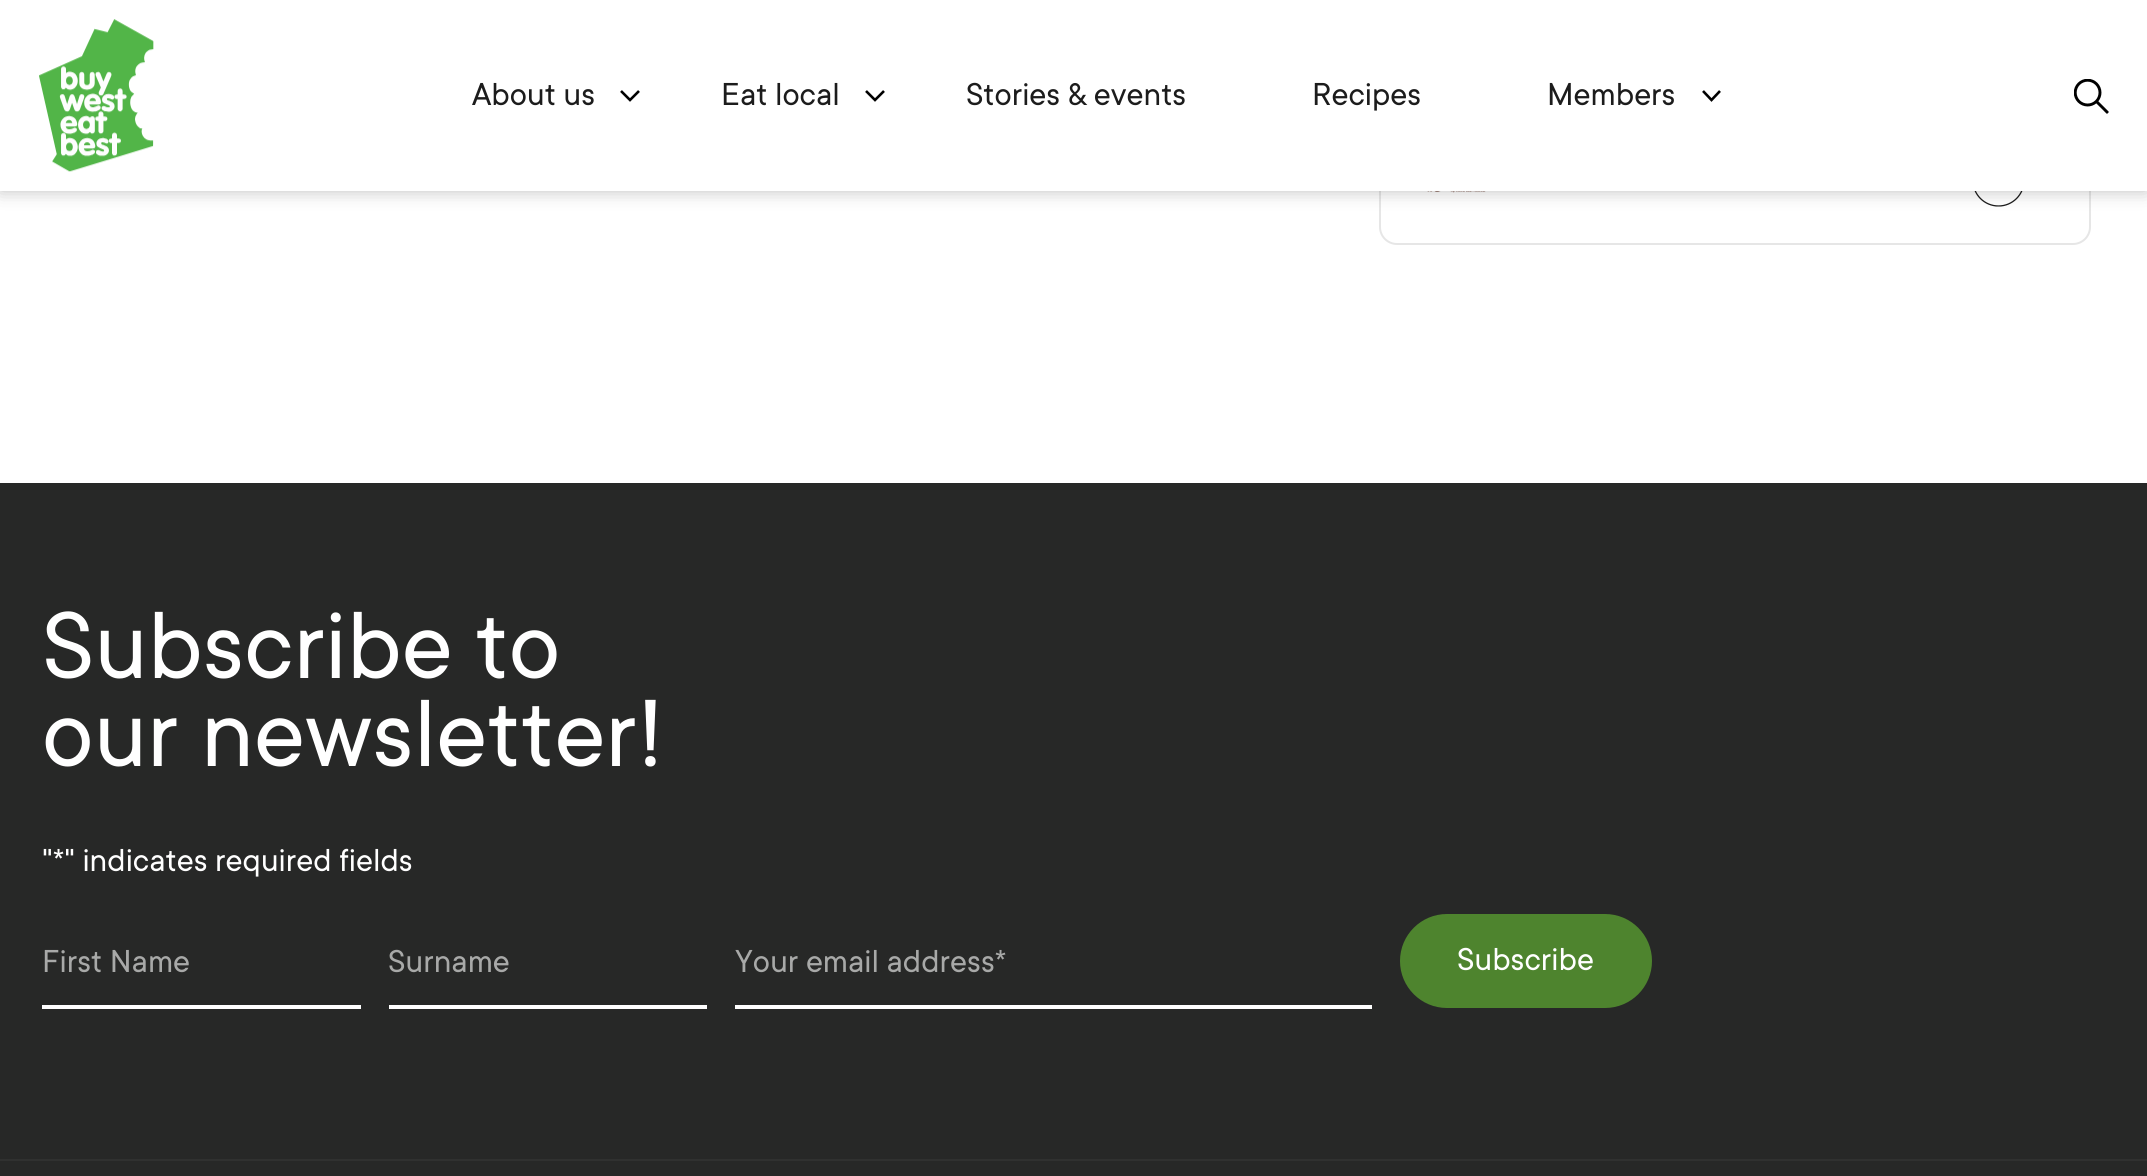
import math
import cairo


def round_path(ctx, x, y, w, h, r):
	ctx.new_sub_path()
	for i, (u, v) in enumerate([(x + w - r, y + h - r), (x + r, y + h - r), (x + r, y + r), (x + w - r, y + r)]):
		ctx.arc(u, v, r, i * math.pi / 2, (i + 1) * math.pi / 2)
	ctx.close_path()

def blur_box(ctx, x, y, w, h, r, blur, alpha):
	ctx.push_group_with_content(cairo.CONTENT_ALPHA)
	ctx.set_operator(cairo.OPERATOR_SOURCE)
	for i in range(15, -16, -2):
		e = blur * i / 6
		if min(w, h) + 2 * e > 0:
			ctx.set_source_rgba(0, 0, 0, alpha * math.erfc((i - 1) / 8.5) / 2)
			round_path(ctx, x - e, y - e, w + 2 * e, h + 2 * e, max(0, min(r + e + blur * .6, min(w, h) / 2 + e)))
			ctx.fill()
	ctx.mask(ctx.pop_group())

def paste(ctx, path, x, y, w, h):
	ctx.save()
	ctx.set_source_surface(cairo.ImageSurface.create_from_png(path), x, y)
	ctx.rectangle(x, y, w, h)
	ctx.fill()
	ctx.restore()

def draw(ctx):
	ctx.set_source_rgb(1, 1, 1)
	ctx.paint()
	round_path(ctx, 1380, 118, 710, 126, 17)
	ctx.set_source_rgb(0.902, 0.902, 0.902)
	ctx.stroke()
	paste(ctx, 'media/3.png', 1422, 191, 79, 2)
	ctx.save()
	ctx.new_path()
	ctx.move_to(1972, 206.5)
	ctx.line_to(1972, 154)
	ctx.line_to(2025, 154)
	ctx.line_to(2025, 206.5)
	ctx.close_path()
	ctx.clip()
	ctx.arc(1998.5, 180.5, 25.5, 0, 2 * math.pi)
	ctx.set_source_rgb(0.11, 0.11, 0.11)
	ctx.set_line_width(1.3)
	ctx.stroke()
	ctx.restore()
	ctx.set_source_rgb(0, 0, 0)
	blur_box(ctx, 0, 0, 2147, 191, 0, 9, 0.25)
	ctx.set_source_rgb(1, 1, 1)
	ctx.rectangle(0, 0, 2147, 191)
	ctx.fill()
	paste(ctx, 'media/1.png', 39, 19, 115, 153)
	ctx.select_font_face('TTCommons')
	ctx.set_font_size(35)
	ctx.set_source_rgb(0.11, 0.11, 0.11)
	ctx.move_to(472, 105)
	ctx.show_text('About us')
	ctx.new_path()
	ctx.move_to(639, 91)
	ctx.line_to(630, 100)
	ctx.line_to(621, 91)
	ctx.set_source_rgb(0, 0, 0)
	ctx.set_line_width(2.6)
	ctx.stroke()
	ctx.set_source_rgb(0.11, 0.11, 0.11)
	ctx.move_to(721, 105)
	ctx.show_text('Eat local')
	ctx.new_path()
	ctx.move_to(884, 91)
	ctx.line_to(875, 100)
	ctx.line_to(866, 91)
	ctx.set_source_rgb(0, 0, 0)
	ctx.stroke()
	ctx.set_source_rgb(0.11, 0.11, 0.11)
	for x, y, s in [
		(966, 105, 'Stories & events'),
		(1312, 105, 'Recipes'),
		(1547, 105, 'Members'),
	]:
		ctx.move_to(x, y)
		ctx.show_text(s)
	ctx.new_path()
	ctx.move_to(1720, 91)
	ctx.line_to(1711.5, 100)
	ctx.line_to(1703, 91)
	ctx.set_source_rgb(0, 0, 0)
	ctx.stroke()
	paste(ctx, 'media/2.png', 2074, 79, 35, 35)
	ctx.set_source_rgb(0.153, 0.157, 0.153)
	ctx.rectangle(0, 483, 2147, 693)
	ctx.fill()
	ctx.set_font_size(105)
	ctx.set_source_rgb(1, 1, 1)
	ctx.move_to(42, 678)
	ctx.show_text('Subscribe to')
	ctx.move_to(42, 766)
	ctx.show_text('our newsletter!')
	ctx.set_font_size(35)
	ctx.move_to(42, 871)
	ctx.show_text('"*" indicates required fields')
	ctx.set_source_rgb(0.659, 0.663, 0.659)
	ctx.move_to(42, 972)
	ctx.show_text('First Name')
	ctx.set_source_rgb(1, 1, 1)
	ctx.rectangle(42, 1005, 319, 4)
	ctx.fill()
	ctx.set_source_rgb(0.659, 0.663, 0.659)
	ctx.move_to(388, 972)
	ctx.show_text('Surname')
	ctx.set_source_rgb(1, 1, 1)
	ctx.rectangle(389, 1005, 318, 4)
	ctx.fill()
	ctx.set_source_rgb(0.659, 0.663, 0.659)
	ctx.move_to(735, 972)
	ctx.show_text('Your email address*')
	ctx.set_source_rgb(1, 1, 1)
	ctx.rectangle(735, 1005, 637, 4)
	ctx.fill()
	ctx.set_source_rgb(0.306, 0.518, 0.18)
	round_path(ctx, 1401, 915, 250, 92, 46)
	ctx.fill_preserve()
	ctx.set_line_width(2)
	ctx.stroke()
	ctx.set_source_rgb(1, 1, 1)
	ctx.move_to(1457, 970)
	ctx.show_text('Subscribe')
	ctx.set_source_rgb(0.188, 0.192, 0.188)
	ctx.rectangle(0, 1159, 2147, 2)
	ctx.fill()


surface = cairo.ImageSurface(cairo.FORMAT_RGB24, 2147, 1176)
ctx = cairo.Context(surface)
options = cairo.FontOptions()
options.set_hint_metrics(cairo.HINT_METRICS_OFF)
options.set_hint_style(cairo.HINT_STYLE_NONE)
ctx.set_font_options(options)
ctx.set_miter_limit(4)
draw(ctx)
surface.write_to_png('image.png')
